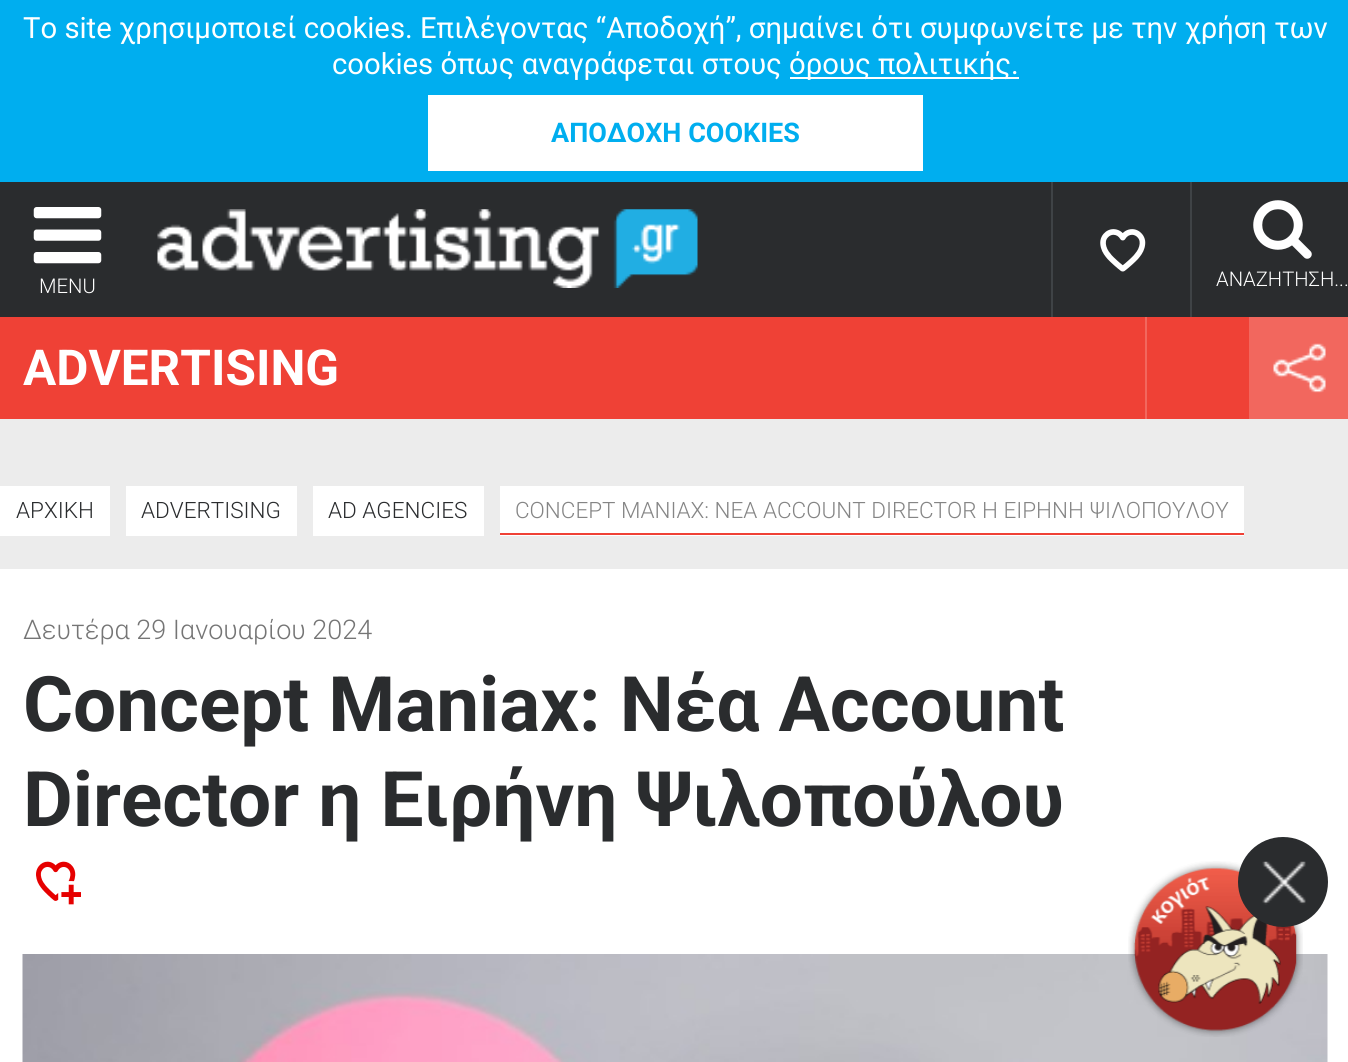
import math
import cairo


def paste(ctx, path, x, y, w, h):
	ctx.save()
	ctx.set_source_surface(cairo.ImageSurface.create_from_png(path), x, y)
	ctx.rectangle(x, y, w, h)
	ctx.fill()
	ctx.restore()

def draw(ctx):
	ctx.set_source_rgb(0.165, 0.173, 0.18)
	ctx.paint()
	ctx.set_source_rgb(0, 0.682, 0.937)
	ctx.rectangle(0, 0, 1348, 182)
	ctx.fill()
	ctx.select_font_face('Roboto')
	ctx.set_font_size(29.25)
	ctx.set_source_rgb(1, 1, 1)
	ctx.move_to(23, 38)
	ctx.show_text('To site χρησιμοποιεί cookies. Επιλέγοντας “Αποδοχή”, σημαίνει ότι συμφωνείτε με την χρήση των')
	ctx.move_to(332, 74)
	ctx.show_text('cookies όπως αναγράφεται στους')
	ctx.rectangle(790, 77, 229, 2)
	ctx.fill()
	ctx.move_to(789, 74)
	ctx.show_text('όρους πολιτικής.')
	ctx.rectangle(428, 95, 495, 76)
	ctx.fill()
	ctx.select_font_face('Roboto', cairo.FONT_SLANT_NORMAL, cairo.FONT_WEIGHT_BOLD)
	ctx.set_font_size(27)
	ctx.set_source_rgb(0, 0.682, 0.937)
	ctx.move_to(551, 142)
	ctx.show_text('ΑΠΟΔΟΧΗ COOKIES')
	paste(ctx, 'media/1.png', 33, 207, 69, 57)
	ctx.select_font_face('Roboto Light')
	ctx.set_font_size(20.25)
	ctx.set_source_rgb(1, 1, 1)
	ctx.move_to(39, 293)
	ctx.show_text('MENU')
	paste(ctx, 'media/2.png', 157, 209, 541, 79)
	ctx.set_source_rgb(0.247, 0.263, 0.275)
	ctx.rectangle(1190, 182, 2, 135)
	ctx.fill()
	ctx.rectangle(1051, 182, 2, 135)
	ctx.fill()
	paste(ctx, 'media/3.png', 1100, 229, 46, 43)
	paste(ctx, 'media/4.png', 1253, 200, 59, 59)
	ctx.set_source_rgb(1, 1, 1)
	ctx.move_to(1216, 286)
	ctx.show_text('ΑΝΑΖΗΤΗΣΗ...')
	ctx.set_source_rgb(0.922, 0.922, 0.922)
	ctx.rectangle(0, 419, 1348, 150)
	ctx.fill()
	ctx.set_source_rgb(0.937, 0.255, 0.212)
	ctx.rectangle(0, 317, 1249, 102)
	ctx.fill()
	ctx.select_font_face('Roboto', cairo.FONT_SLANT_NORMAL, cairo.FONT_WEIGHT_BOLD)
	ctx.set_font_size(49.5)
	ctx.set_source_rgb(1, 1, 1)
	ctx.move_to(23, 385)
	ctx.show_text('ADVERTISING')
	ctx.set_source_rgb(0.949, 0.404, 0.369)
	ctx.rectangle(1145, 317, 2, 102)
	ctx.fill()
	ctx.rectangle(1249, 317, 99, 102)
	ctx.fill()
	paste(ctx, 'media/5.png', 1273, 343, 53, 50)
	ctx.set_source_rgb(1, 1, 1)
	ctx.rectangle(0, 486, 110, 50)
	ctx.fill()
	ctx.select_font_face('Roboto Light')
	ctx.set_font_size(22.5)
	ctx.set_source_rgb(0.165, 0.173, 0.18)
	ctx.move_to(16, 518)
	ctx.show_text('ΑΡΧΙΚΗ')
	ctx.set_source_rgb(1, 1, 1)
	ctx.rectangle(126, 486, 171, 50)
	ctx.fill()
	ctx.set_source_rgb(0.165, 0.173, 0.18)
	ctx.move_to(141, 518)
	ctx.show_text('ADVERTISING')
	ctx.set_source_rgb(1, 1, 1)
	ctx.rectangle(313, 486, 171, 50)
	ctx.fill()
	ctx.set_source_rgb(0.165, 0.173, 0.18)
	ctx.move_to(328, 518)
	ctx.show_text('AD AGENCIES')
	ctx.set_source_rgb(1, 1, 1)
	ctx.rectangle(500, 486, 744, 50)
	ctx.fill()
	ctx.set_source_rgb(0.937, 0.255, 0.212)
	ctx.rectangle(500, 533, 744, 2)
	ctx.fill()
	ctx.set_source_rgb(0.522, 0.522, 0.522)
	ctx.move_to(515, 518)
	ctx.show_text('CONCEPT MANIAX: ΝΕΑ ACCOUNT DIRECTOR Η ΕΙΡΗΝΗ ΨΙΛΟΠΟΥΛΟΥ')
	ctx.set_source_rgb(1, 1, 1)
	ctx.rectangle(0, 569, 1348, 493)
	ctx.fill()
	ctx.set_font_size(27)
	ctx.set_source_rgb(0.459, 0.459, 0.459)
	ctx.move_to(23, 639)
	ctx.show_text('Δευτέρα 29 Ιανουαρίου 2024')
	ctx.select_font_face('Roboto', cairo.FONT_SLANT_NORMAL, cairo.FONT_WEIGHT_BOLD)
	ctx.set_font_size(76.5)
	ctx.set_source_rgb(0.165, 0.173, 0.18)
	ctx.move_to(23, 731)
	ctx.show_text('Concept Maniax: Νέα Account')
	ctx.move_to(23, 826)
	ctx.show_text('Director η Ειρήνη Ψιλοπούλου')
	paste(ctx, 'media/6.png', 36, 861, 45, 44)
	paste(ctx, 'media/7.png', 22, 954, 1306, 108)
	paste(ctx, 'media/9.png', 1128, 861, 175, 176)
	ctx.arc(1283, 882, 45, 0, 2 * math.pi)
	ctx.fill()
	paste(ctx, 'media/8.png', 1262, 861, 44, 44)


surface = cairo.ImageSurface(cairo.FORMAT_RGB24, 1348, 1062)
ctx = cairo.Context(surface)
options = cairo.FontOptions()
options.set_hint_metrics(cairo.HINT_METRICS_OFF)
options.set_hint_style(cairo.HINT_STYLE_NONE)
ctx.set_font_options(options)
ctx.set_miter_limit(4)
draw(ctx)
surface.write_to_png('image.png')
